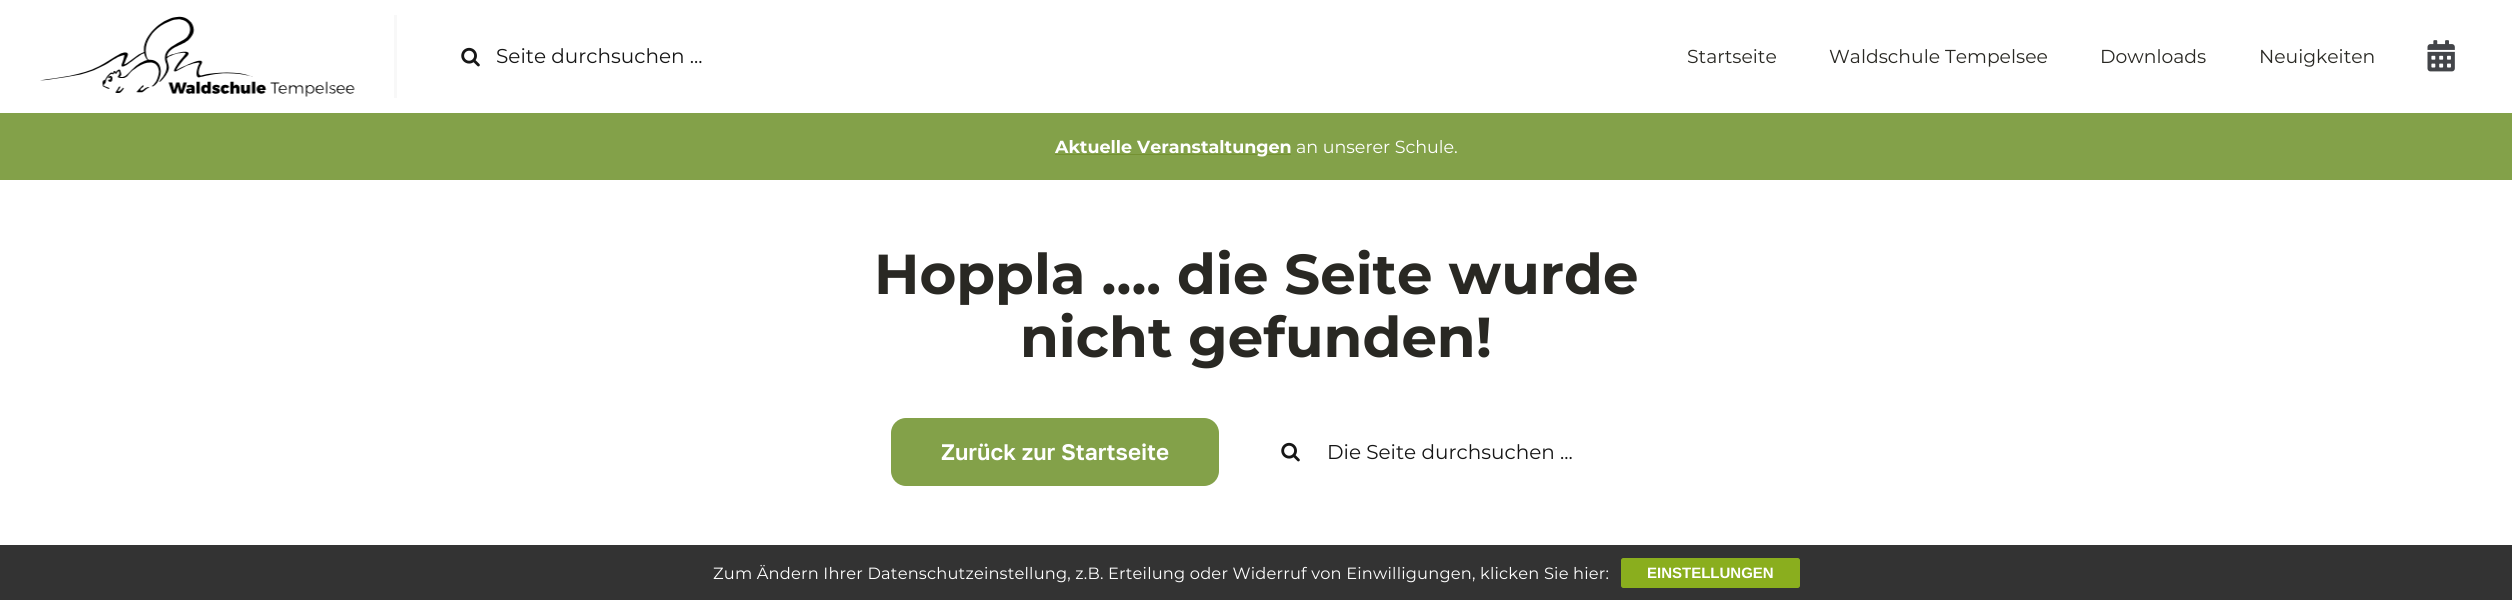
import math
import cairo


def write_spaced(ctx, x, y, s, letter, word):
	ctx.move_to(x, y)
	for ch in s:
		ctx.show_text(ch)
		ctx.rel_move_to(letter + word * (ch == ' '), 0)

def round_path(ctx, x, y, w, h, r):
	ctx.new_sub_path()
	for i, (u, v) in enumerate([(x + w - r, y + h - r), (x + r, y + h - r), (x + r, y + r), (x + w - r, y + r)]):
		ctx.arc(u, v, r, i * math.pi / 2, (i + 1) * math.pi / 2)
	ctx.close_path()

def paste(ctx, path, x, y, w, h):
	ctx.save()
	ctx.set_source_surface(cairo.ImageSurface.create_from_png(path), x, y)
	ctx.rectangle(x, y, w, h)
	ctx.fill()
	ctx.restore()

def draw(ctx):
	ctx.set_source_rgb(1, 1, 1)
	ctx.paint()
	ctx.set_source_rgb(0.969, 0.969, 0.969)
	ctx.rectangle(394, 15, 3, 83)
	ctx.fill()
	paste(ctx, 'media/1.png', 40, 16, 315, 81)
	paste(ctx, 'media/2.png', 461, 47, 19, 20)
	ctx.select_font_face('Montserrat')
	ctx.set_font_size(20)
	ctx.set_source_rgb(0.086, 0.086, 0.086)
	ctx.move_to(496, 63)
	ctx.show_text('Seite durchsuchen ...')
	ctx.set_font_size(18.75)
	ctx.set_source_rgb(0.161, 0.157, 0.137)
	for x, y, s in [
		(1687, 63, 'Startseite'),
		(1829, 63, 'Waldschule Tempelsee'),
		(2100, 63, 'Downloads'),
		(2259, 63, 'Neuigkeiten'),
	]:
		ctx.move_to(x, y)
		ctx.show_text(s)
	paste(ctx, 'media/3.png', 2427, 40, 28, 32)
	ctx.set_source_rgb(0.514, 0.631, 0.286)
	ctx.rectangle(0, 113, 2512, 67)
	ctx.fill()
	ctx.set_source_rgb(0.459, 0.569, 0.196)
	ctx.rectangle(1055, 154, 236, 1)
	ctx.fill()
	ctx.select_font_face('Montserrat', cairo.FONT_SLANT_NORMAL, cairo.FONT_WEIGHT_BOLD)
	ctx.set_font_size(17.5)
	ctx.set_source_rgb(1, 1, 1)
	ctx.move_to(1055, 153)
	ctx.show_text('Aktuelle Veranstaltungen')
	ctx.select_font_face('Montserrat')
	ctx.move_to(1296, 153)
	ctx.show_text('an unserer Schule.')
	ctx.select_font_face('Montserrat', cairo.FONT_SLANT_NORMAL, cairo.FONT_WEIGHT_BOLD)
	ctx.set_font_size(56.25)
	ctx.set_source_rgb(0.161, 0.157, 0.137)
	ctx.move_to(874, 294)
	ctx.show_text('Hoppla …. die Seite wurde')
	ctx.move_to(1020, 357)
	ctx.show_text('nicht gefunden!')
	ctx.set_source_rgb(0.514, 0.631, 0.286)
	round_path(ctx, 891, 418, 328, 68, 15)
	ctx.fill()
	ctx.select_font_face('Golos Text SemiBold')
	ctx.set_font_size(22.5)
	ctx.set_source_rgb(1, 1, 1)
	ctx.move_to(941, 460)
	ctx.show_text('Zurück zur Startseite')
	paste(ctx, 'media/2.png', 1281, 442, 19, 20)
	ctx.select_font_face('Montserrat')
	ctx.set_font_size(20)
	ctx.set_source_rgb(0.086, 0.086, 0.086)
	ctx.move_to(1327, 459)
	ctx.show_text('Die Seite durchsuchen ...')
	ctx.set_source_rgb(0.2, 0.2, 0.2)
	ctx.rectangle(0, 545, 2512, 55)
	ctx.fill()
	ctx.set_font_size(16.25)
	ctx.set_source_rgb(1, 1, 1)
	write_spaced(ctx, 713, 579, 'Zum Ändern Ihrer Datenschutzeinstellung, z.B. Erteilung oder Widerruf von Einwilligungen, klicken Sie hier:', 0.19, 0)
	ctx.set_source_rgb(0.541, 0.682, 0.118)
	round_path(ctx, 1621.5, 558.5, 178, 29, 2)
	ctx.fill_preserve()
	ctx.set_line_width(1)
	ctx.stroke()
	ctx.select_font_face('Liberation Sans', cairo.FONT_SLANT_NORMAL, cairo.FONT_WEIGHT_BOLD)
	ctx.set_font_size(15)
	ctx.set_source_rgb(1, 1, 1)
	ctx.move_to(1647, 578)
	ctx.show_text('EINSTELLUNGEN')


surface = cairo.ImageSurface(cairo.FORMAT_RGB24, 2512, 600)
ctx = cairo.Context(surface)
options = cairo.FontOptions()
options.set_hint_metrics(cairo.HINT_METRICS_OFF)
options.set_hint_style(cairo.HINT_STYLE_NONE)
ctx.set_font_options(options)
ctx.set_miter_limit(4)
draw(ctx)
surface.write_to_png('image.png')
